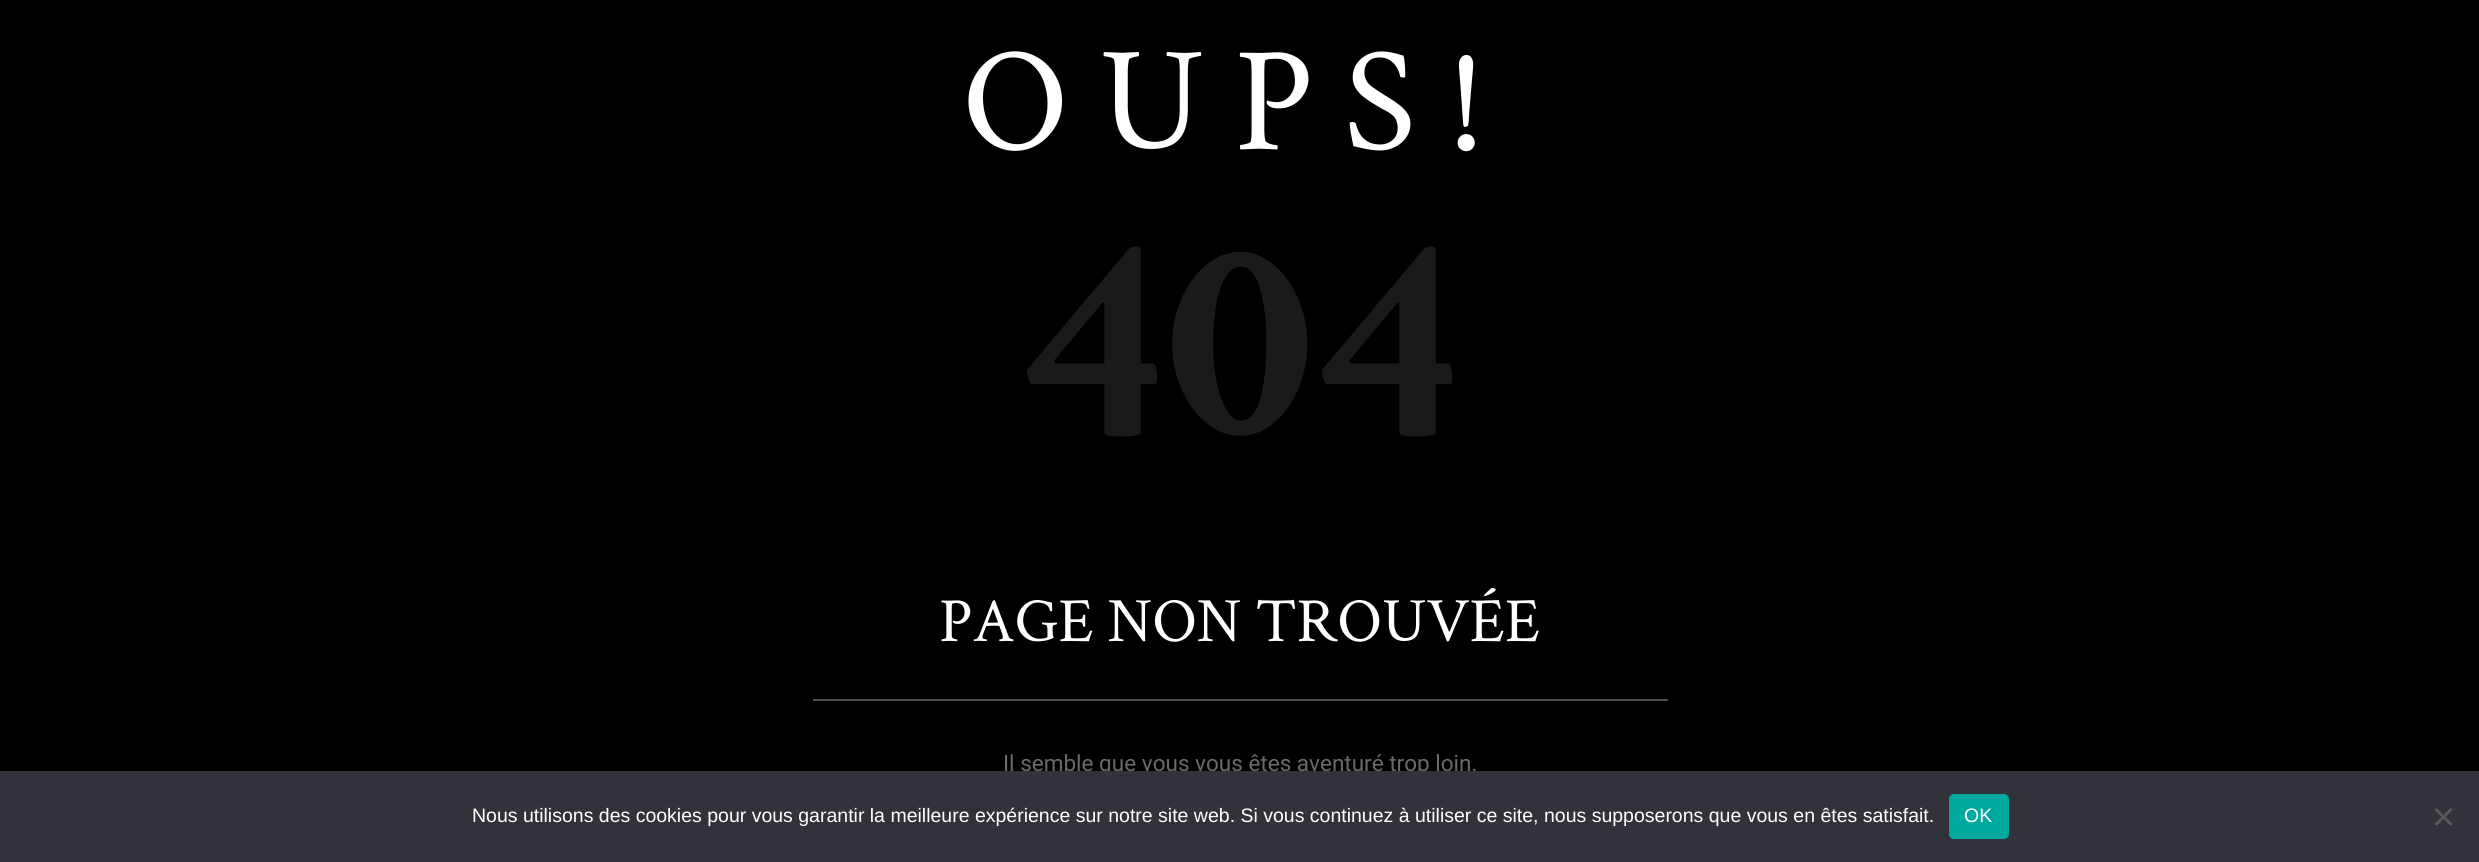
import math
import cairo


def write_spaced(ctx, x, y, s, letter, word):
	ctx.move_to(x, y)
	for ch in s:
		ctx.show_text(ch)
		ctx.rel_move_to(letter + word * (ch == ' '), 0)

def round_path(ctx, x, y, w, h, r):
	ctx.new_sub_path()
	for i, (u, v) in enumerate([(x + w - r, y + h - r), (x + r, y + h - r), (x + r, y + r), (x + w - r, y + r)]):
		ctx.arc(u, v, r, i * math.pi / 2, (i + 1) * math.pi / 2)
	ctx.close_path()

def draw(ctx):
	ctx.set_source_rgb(0, 0, 0)
	ctx.paint()
	ctx.select_font_face('Crimson Text')
	ctx.set_font_size(150)
	ctx.set_source_rgb(1, 1, 1)
	write_spaced(ctx, 962, 149, 'OUPS!', 30, 0)
	ctx.select_font_face('Crimson Text', cairo.FONT_SLANT_NORMAL, cairo.FONT_WEIGHT_BOLD)
	ctx.set_font_size(300)
	ctx.set_source_rgb(0.102, 0.102, 0.102)
	ctx.move_to(1020, 435)
	ctx.show_text('404')
	ctx.set_source_rgb(0.302, 0.302, 0.302)
	ctx.rectangle(813, 699, 855, 2)
	ctx.fill()
	ctx.select_font_face('Crimson Text')
	ctx.set_font_size(63)
	ctx.set_source_rgb(1, 1, 1)
	ctx.move_to(939, 641)
	ctx.show_text('PAGE NON TROUVÉE')
	ctx.select_font_face('Roboto')
	ctx.set_font_size(22.5)
	ctx.set_source_rgb(0.416, 0.416, 0.416)
	ctx.move_to(1003, 771)
	ctx.show_text('Il semble que vous vous êtes aventuré trop loin.')
	ctx.set_source_rgb(0.196, 0.196, 0.227)
	ctx.rectangle(0, 771, 2479, 91)
	ctx.fill()
	ctx.select_font_face('Liberation Sans')
	ctx.set_font_size(19.5)
	ctx.set_source_rgb(1, 1, 1)
	ctx.move_to(472, 822)
	ctx.show_text('Nous utilisons des cookies pour vous garantir la meilleure expérience sur notre site web. Si vous continuez à utiliser ce site, nous supposerons que vous en êtes satisfait.')
	ctx.set_source_rgb(0, 0.663, 0.616)
	round_path(ctx, 1949, 794, 60, 45, 5)
	ctx.fill()
	ctx.set_source_rgb(1, 1, 1)
	ctx.move_to(1964, 822)
	ctx.show_text('OK')
	ctx.set_source_rgb(0.349, 0.349, 0.365)
	ctx.new_path()
	ctx.move_to(2450.5, 808)
	ctx.line_to(2452.5, 810)
	ctx.line_to(2436.5, 826)
	ctx.line_to(2434.5, 824)
	ctx.close_path()
	ctx.fill()
	ctx.new_path()
	ctx.move_to(2434.5, 810)
	ctx.line_to(2436.5, 808)
	ctx.line_to(2452.5, 824)
	ctx.line_to(2450.5, 826)
	ctx.close_path()
	ctx.fill()


surface = cairo.ImageSurface(cairo.FORMAT_RGB24, 2479, 862)
ctx = cairo.Context(surface)
options = cairo.FontOptions()
options.set_hint_metrics(cairo.HINT_METRICS_OFF)
options.set_hint_style(cairo.HINT_STYLE_NONE)
ctx.set_font_options(options)
ctx.set_miter_limit(4)
draw(ctx)
surface.write_to_png('image.png')
